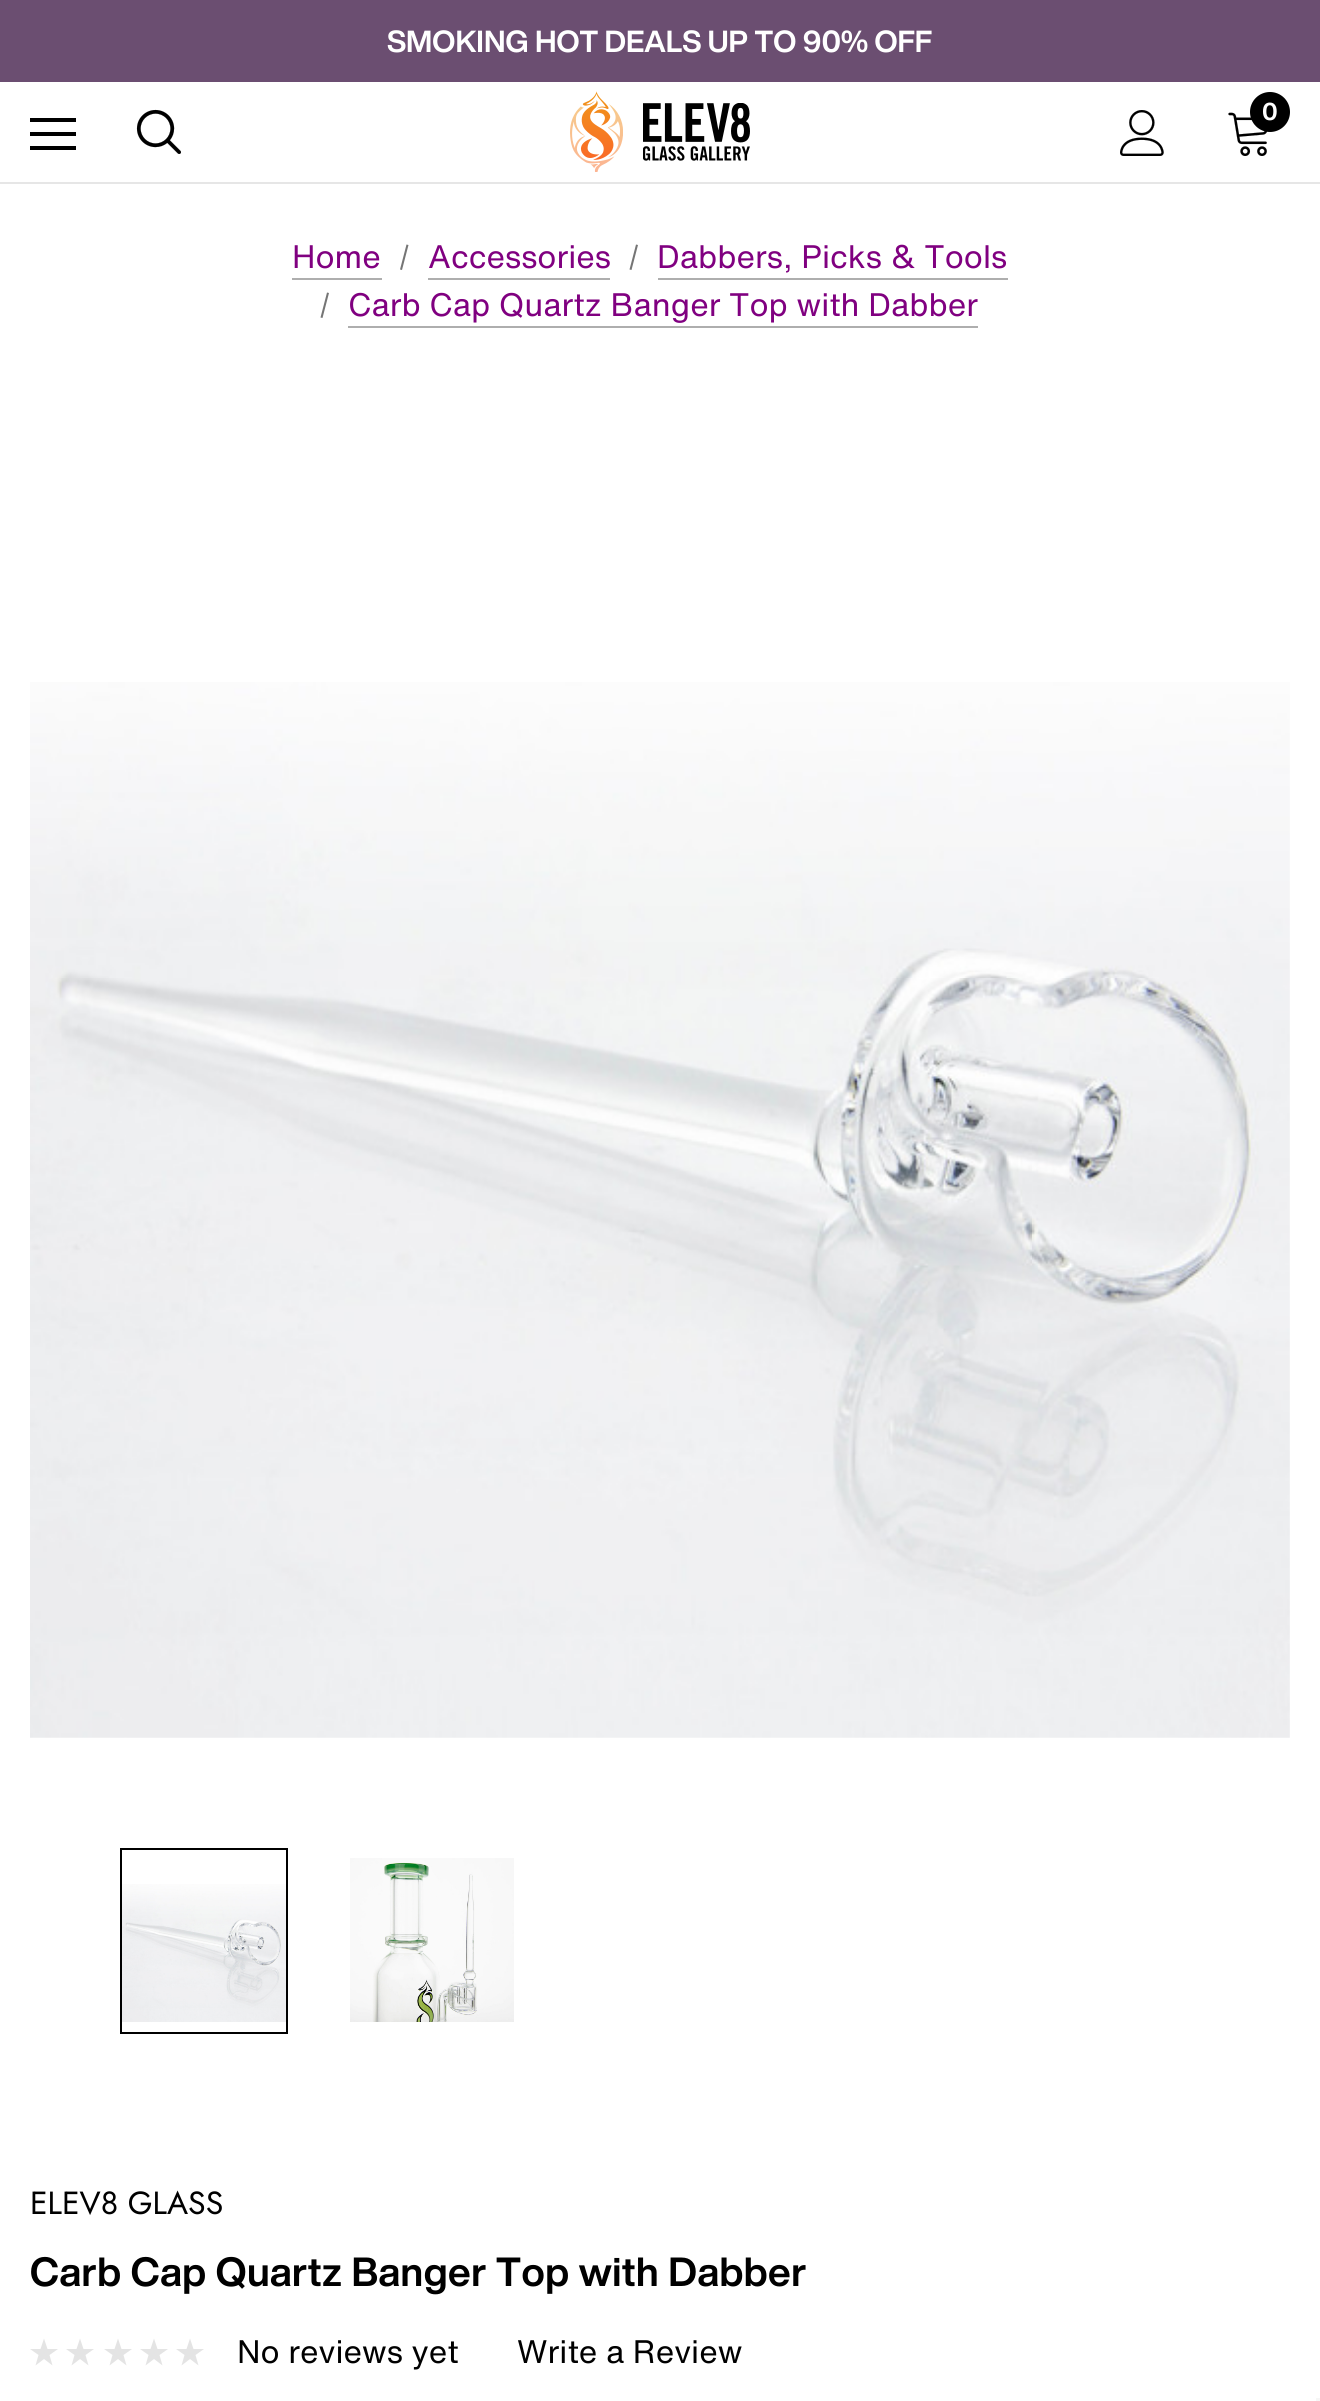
import math
import cairo


def write_spaced(ctx, x, y, s, letter, word):
	ctx.move_to(x, y)
	for ch in s:
		ctx.show_text(ch)
		ctx.rel_move_to(letter + word * (ch == ' '), 0)

def paste(ctx, path, x, y, w, h):
	ctx.save()
	ctx.set_source_surface(cairo.ImageSurface.create_from_png(path), x, y)
	ctx.rectangle(x, y, w, h)
	ctx.fill()
	ctx.restore()

def draw(ctx):
	ctx.set_source_rgb(1, 1, 1)
	ctx.paint()
	ctx.set_source_rgb(0.42, 0.306, 0.443)
	ctx.rectangle(0, 0, 1320, 82)
	ctx.fill()
	ctx.select_font_face('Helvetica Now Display', cairo.FONT_SLANT_NORMAL, cairo.FONT_WEIGHT_BOLD)
	ctx.set_font_size(30)
	ctx.set_source_rgb(1, 1, 1)
	ctx.move_to(387, 52)
	ctx.show_text('SMOKING HOT DEALS UP TO 90% OFF')
	ctx.set_source_rgb(0.902, 0.902, 0.902)
	ctx.rectangle(0, 182, 1320, 2)
	ctx.fill()
	ctx.set_source_rgb(0, 0, 0)
	ctx.rectangle(30, 132, 46, 4)
	ctx.rectangle(30, 118, 46, 4)
	ctx.rectangle(30, 146, 46, 4)
	ctx.fill()
	paste(ctx, 'media/1.png', 136, 109, 45, 45)
	paste(ctx, 'media/2.png', 570, 91, 180, 81)
	paste(ctx, 'media/3.png', 1120, 110, 44, 46)
	paste(ctx, 'media/4.png', 1228, 112, 40, 44)
	ctx.arc(1270, 112, 20, 0, 2 * math.pi)
	ctx.fill()
	ctx.set_font_size(24)
	ctx.set_source_rgb(1, 1, 1)
	ctx.move_to(1262, 120)
	ctx.show_text('0')
	ctx.select_font_face('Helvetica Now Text')
	ctx.set_font_size(32)
	ctx.set_source_rgb(0.502, 0, 0.502)
	ctx.move_to(292, 268)
	ctx.show_text('Home')
	ctx.set_source_rgb(0.682, 0.682, 0.682)
	ctx.rectangle(292, 278, 90, 2)
	ctx.fill()
	ctx.set_source_rgb(0.459, 0.459, 0.459)
	ctx.new_path()
	ctx.move_to(406.5, 244.5)
	ctx.line_to(408.5, 245)
	ctx.line_to(402, 270)
	ctx.line_to(400, 269.5)
	ctx.close_path()
	ctx.fill()
	ctx.set_source_rgb(0.502, 0, 0.502)
	ctx.move_to(428, 268)
	ctx.show_text('Accessories')
	ctx.set_source_rgb(0.682, 0.682, 0.682)
	ctx.rectangle(428, 278, 182, 2)
	ctx.fill()
	ctx.set_source_rgb(0.459, 0.459, 0.459)
	ctx.new_path()
	ctx.move_to(636, 244.5)
	ctx.line_to(638, 245)
	ctx.line_to(631.5, 270)
	ctx.line_to(629.5, 269.5)
	ctx.close_path()
	ctx.fill()
	ctx.set_source_rgb(0.502, 0, 0.502)
	ctx.move_to(657, 268)
	ctx.show_text('Dabbers, Picks & Tools')
	ctx.set_source_rgb(0.682, 0.682, 0.682)
	ctx.rectangle(658, 278, 350, 2)
	ctx.fill()
	ctx.set_source_rgb(0.459, 0.459, 0.459)
	ctx.new_path()
	ctx.move_to(327, 292.5)
	ctx.line_to(329, 293)
	ctx.line_to(322.5, 318)
	ctx.line_to(320.5, 317.5)
	ctx.close_path()
	ctx.fill()
	ctx.set_source_rgb(0.502, 0, 0.502)
	ctx.move_to(348, 316)
	ctx.show_text('Carb Cap Quartz Banger Top with Dabber')
	ctx.set_source_rgb(0.682, 0.682, 0.682)
	ctx.rectangle(348, 326, 630, 2)
	ctx.fill()
	paste(ctx, 'media/5.png', 30, 682, 1260, 1056)
	ctx.rectangle(121, 1849, 166, 184)
	ctx.set_source_rgb(0, 0, 0)
	ctx.stroke()
	paste(ctx, 'media/6.png', 122, 1884, 164, 138)
	paste(ctx, 'media/7.png', 350, 1858, 164, 164)
	ctx.select_font_face('Jost')
	ctx.move_to(30, 2214)
	ctx.show_text('ELEV8 GLASS')
	ctx.select_font_face('Helvetica Now Display', cairo.FONT_SLANT_NORMAL, cairo.FONT_WEIGHT_BOLD)
	ctx.set_font_size(40)
	write_spaced(ctx, 30, 2286, 'Carb Cap Quartz Banger Top with Dabber', 0.5, 0)
	ctx.set_source_rgb(0.894, 0.894, 0.894)
	ctx.new_path()
	ctx.move_to(44, 2359)
	ctx.line_to(52.5, 2365.5)
	ctx.line_to(49.5, 2355)
	ctx.line_to(58, 2349)
	ctx.line_to(47.5, 2349)
	ctx.line_to(44, 2338.5)
	ctx.line_to(40.5, 2349)
	ctx.line_to(30, 2349)
	ctx.line_to(38.5, 2355)
	ctx.line_to(35.5, 2365.5)
	ctx.close_path()
	ctx.fill()
	ctx.new_path()
	ctx.move_to(80, 2359)
	ctx.line_to(88.5, 2365.5)
	ctx.line_to(85.5, 2355)
	ctx.line_to(94, 2349)
	ctx.line_to(83.5, 2349)
	ctx.line_to(80, 2338.5)
	ctx.line_to(76.5, 2349)
	ctx.line_to(66, 2349)
	ctx.line_to(74.5, 2355)
	ctx.line_to(71.5, 2365.5)
	ctx.close_path()
	ctx.fill()
	ctx.new_path()
	ctx.move_to(118, 2359)
	ctx.line_to(126.5, 2365.5)
	ctx.line_to(123.5, 2355)
	ctx.line_to(132, 2349)
	ctx.line_to(121.5, 2349)
	ctx.line_to(118, 2338.5)
	ctx.line_to(114.5, 2349)
	ctx.line_to(104, 2349)
	ctx.line_to(112.5, 2355)
	ctx.line_to(109.5, 2365.5)
	ctx.close_path()
	ctx.fill()
	ctx.new_path()
	ctx.move_to(154, 2359)
	ctx.line_to(162.5, 2365.5)
	ctx.line_to(159.5, 2355)
	ctx.line_to(168, 2349)
	ctx.line_to(157.5, 2349)
	ctx.line_to(154, 2338.5)
	ctx.line_to(150.5, 2349)
	ctx.line_to(140, 2349)
	ctx.line_to(148.5, 2355)
	ctx.line_to(145.5, 2365.5)
	ctx.close_path()
	ctx.fill()
	ctx.new_path()
	ctx.move_to(190, 2359)
	ctx.line_to(198.5, 2365.5)
	ctx.line_to(195.5, 2355)
	ctx.line_to(204, 2349)
	ctx.line_to(193.5, 2349)
	ctx.line_to(190, 2338.5)
	ctx.line_to(186.5, 2349)
	ctx.line_to(176, 2349)
	ctx.line_to(184.5, 2355)
	ctx.line_to(181.5, 2365.5)
	ctx.close_path()
	ctx.fill()
	ctx.select_font_face('Helvetica Now Text')
	ctx.set_font_size(32)
	ctx.set_source_rgb(0, 0, 0)
	ctx.move_to(237, 2363)
	ctx.show_text('No reviews yet')
	ctx.move_to(517, 2363)
	ctx.show_text('Write a Review')
	ctx.set_source_rgb(0.961, 0.961, 0.961)
	ctx.rectangle(1316, 2398, 4, 3)
	ctx.fill()


surface = cairo.ImageSurface(cairo.FORMAT_RGB24, 1320, 2401)
ctx = cairo.Context(surface)
options = cairo.FontOptions()
options.set_hint_metrics(cairo.HINT_METRICS_OFF)
options.set_hint_style(cairo.HINT_STYLE_NONE)
ctx.set_font_options(options)
ctx.set_miter_limit(4)
draw(ctx)
surface.write_to_png('image.png')
